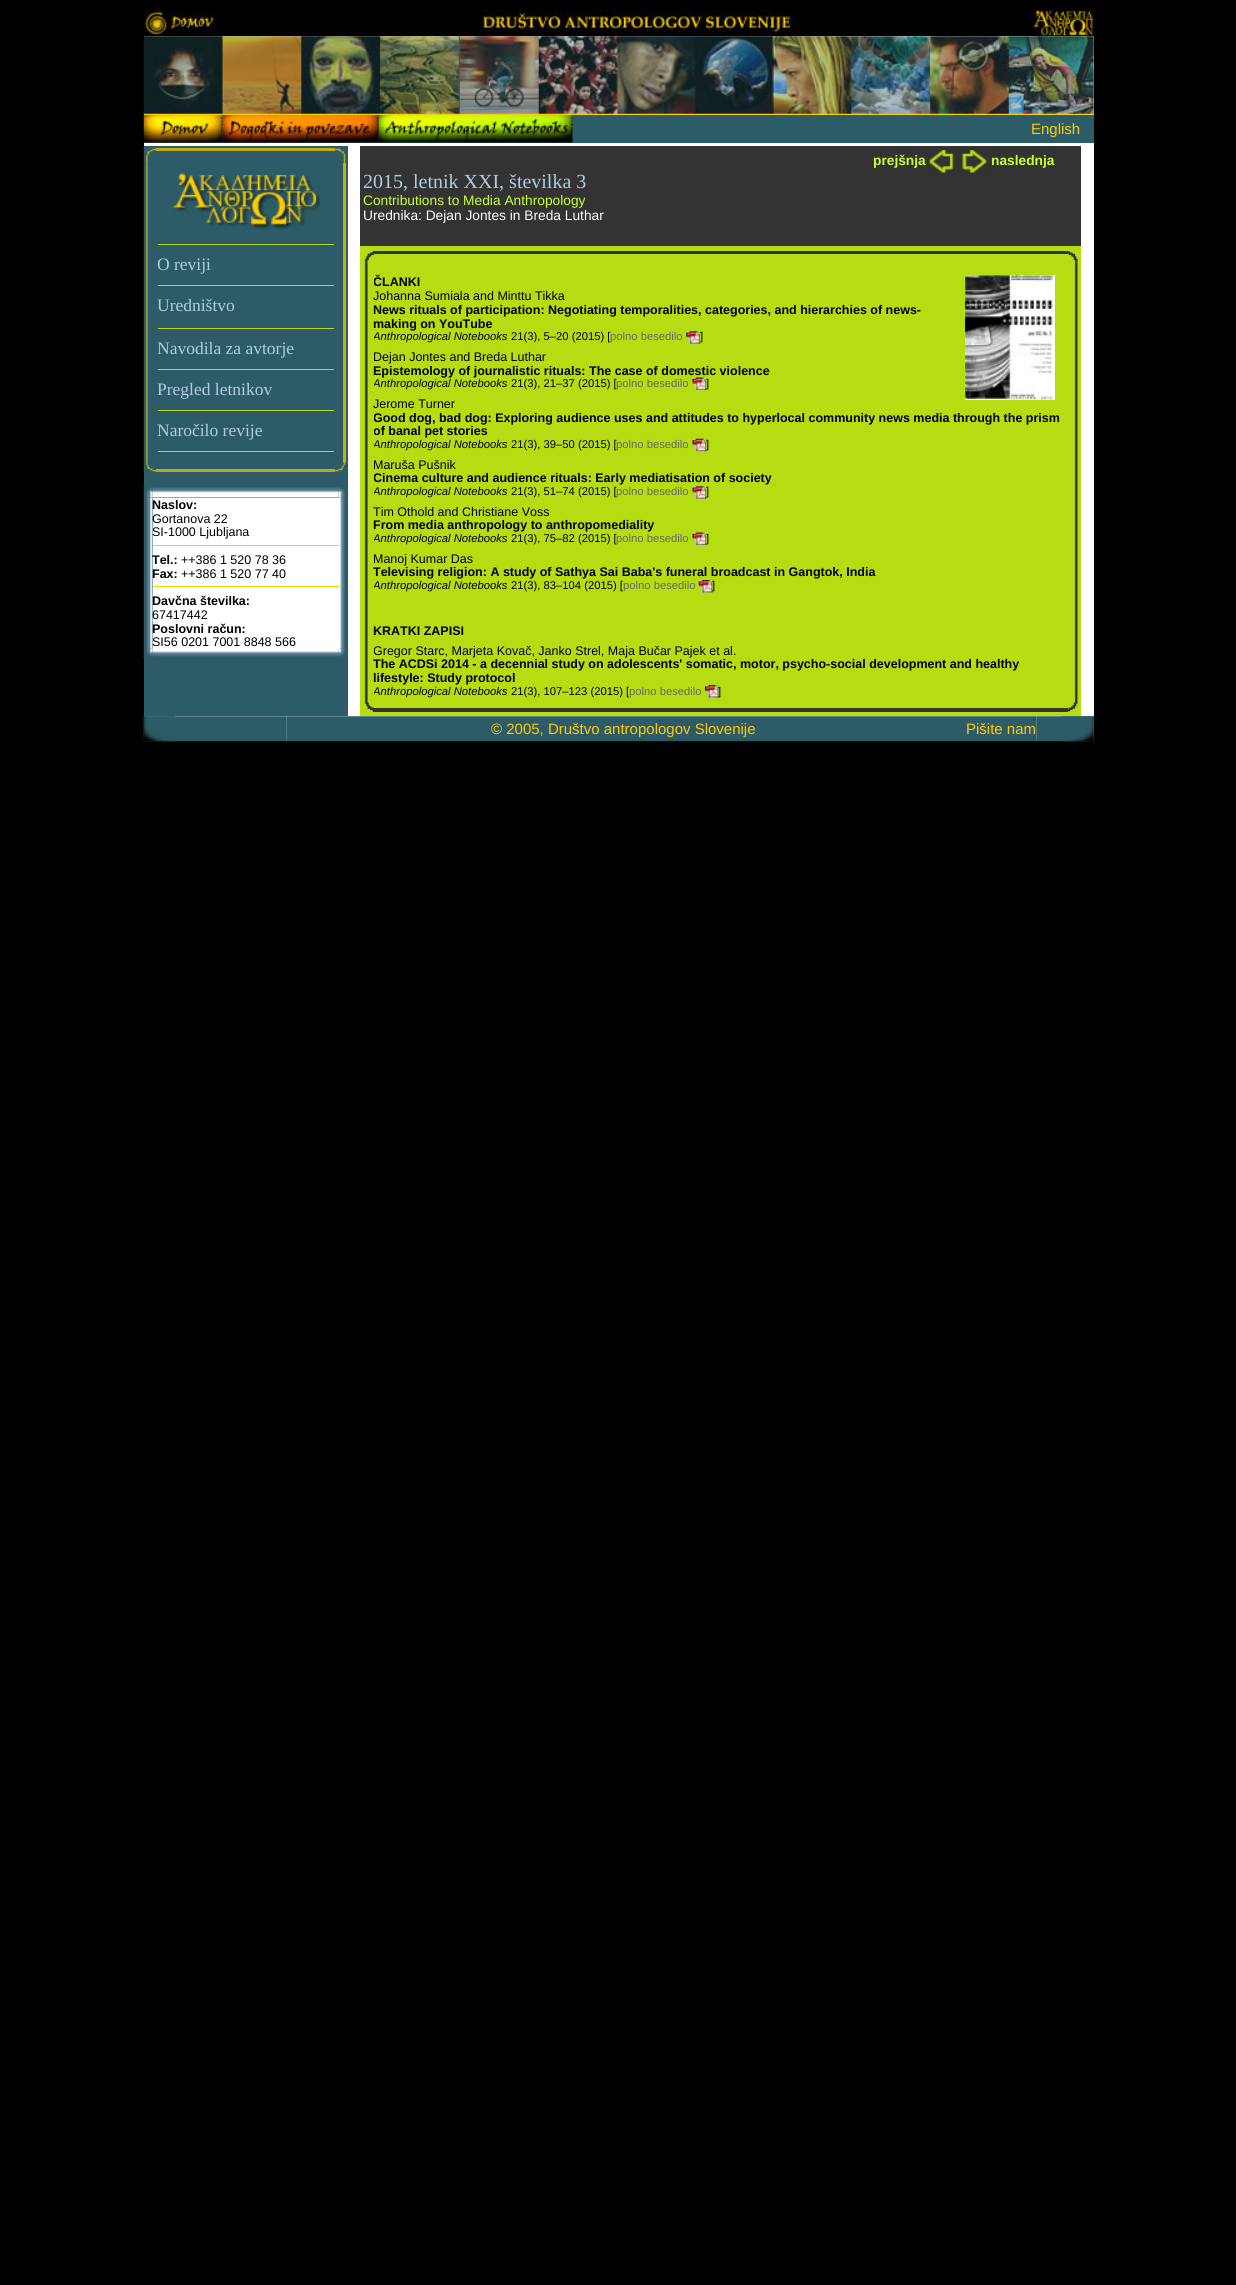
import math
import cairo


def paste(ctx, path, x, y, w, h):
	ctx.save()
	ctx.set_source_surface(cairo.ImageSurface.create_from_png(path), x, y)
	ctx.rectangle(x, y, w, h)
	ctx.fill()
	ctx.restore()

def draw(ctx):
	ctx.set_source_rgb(0, 0, 0)
	ctx.paint()
	ctx.set_source_rgb(1, 1, 1)
	ctx.rectangle(144, 36, 950, 705)
	ctx.fill()
	paste(ctx, 'media/1.png', 143, 10, 689, 27)
	paste(ctx, 'media/2.png', 1033, 10, 61, 27)
	paste(ctx, 'media/3.png', 143, 36, 951, 79)
	ctx.set_source_rgb(0.173, 0.361, 0.408)
	ctx.rectangle(144, 115, 950, 28)
	ctx.fill()
	paste(ctx, 'media/4.png', 143, 115, 80, 28)
	paste(ctx, 'media/5.png', 222, 115, 157, 28)
	paste(ctx, 'media/6.png', 378, 115, 195, 28)
	ctx.select_font_face('Liberation Sans')
	ctx.set_font_size(15)
	ctx.set_source_rgb(1, 0.8, 0)
	ctx.move_to(1031, 134)
	ctx.show_text('English')
	ctx.set_source_rgb(0.176, 0.357, 0.408)
	ctx.rectangle(144, 146, 204, 570)
	ctx.fill()
	paste(ctx, 'media/7.png', 143, 146, 14, 18)
	ctx.set_source_rgb(0.769, 0.675, 0.114)
	ctx.rectangle(156, 148, 179, 3)
	ctx.fill()
	paste(ctx, 'media/8.png', 335, 148, 11, 16)
	paste(ctx, 'media/9.png', 143, 163, 5, 300)
	paste(ctx, 'media/10.png', 171, 165, 149, 65)
	ctx.set_source_rgb(0.714, 0.867, 0.071)
	ctx.rectangle(158, 244, 176, 1)
	ctx.fill()
	ctx.select_font_face('Liberation Serif')
	ctx.set_font_size(17.5)
	ctx.set_source_rgb(0.694, 0.804, 0.886)
	ctx.move_to(157, 270)
	ctx.show_text('O reviji')
	ctx.set_source_rgb(0.714, 0.867, 0.071)
	ctx.rectangle(158, 285, 176, 1)
	ctx.fill()
	ctx.set_source_rgb(0.694, 0.804, 0.886)
	ctx.move_to(157, 311)
	ctx.show_text('Uredništvo')
	ctx.set_source_rgb(0.714, 0.867, 0.071)
	ctx.rectangle(158, 328, 176, 1)
	ctx.fill()
	ctx.set_source_rgb(0.694, 0.804, 0.886)
	ctx.move_to(157, 354)
	ctx.show_text('Navodila za avtorje')
	ctx.set_source_rgb(0.714, 0.867, 0.071)
	ctx.rectangle(158, 369, 176, 1)
	ctx.fill()
	ctx.set_source_rgb(0.694, 0.804, 0.886)
	ctx.move_to(157, 395)
	ctx.show_text('Pregled letnikov')
	ctx.set_source_rgb(0.714, 0.867, 0.071)
	ctx.rectangle(158, 410, 176, 1)
	ctx.fill()
	ctx.set_source_rgb(0.694, 0.804, 0.886)
	ctx.move_to(157, 436)
	ctx.show_text('Naročilo revije')
	ctx.set_source_rgb(0.714, 0.867, 0.071)
	ctx.rectangle(158, 451, 176, 1)
	ctx.fill()
	ctx.set_source_rgb(0.769, 0.675, 0.114)
	ctx.rectangle(343, 163, 3, 300)
	ctx.fill()
	paste(ctx, 'media/11.png', 143, 462, 14, 11)
	ctx.set_source_rgb(0.729, 0.655, 0.133)
	ctx.rectangle(156, 469, 179, 3)
	ctx.fill()
	paste(ctx, 'media/12.png', 335, 462, 11, 10)
	paste(ctx, 'media/13.png', 143, 485, 10, 13)
	paste(ctx, 'media/14.png', 152, 487, 187, 11)
	paste(ctx, 'media/15.png', 338, 487, 7, 11)
	paste(ctx, 'media/16.png', 143, 497, 10, 152)
	ctx.set_source_rgb(1, 1, 1)
	ctx.rectangle(153, 498, 186, 151)
	ctx.fill()
	ctx.select_font_face('Liberation Sans', cairo.FONT_SLANT_NORMAL, cairo.FONT_WEIGHT_BOLD)
	ctx.set_font_size(12.5)
	ctx.set_source_rgb(0, 0, 0)
	ctx.move_to(152, 509)
	ctx.show_text('Naslov:')
	ctx.select_font_face('Liberation Sans')
	ctx.move_to(152, 523)
	ctx.show_text('Gortanova 22')
	ctx.move_to(152, 536)
	ctx.show_text('SI-1000 Ljubljana')
	paste(ctx, 'media/17.png', 338, 497, 7, 152)
	ctx.set_source_rgb(1, 0.8, 0)
	ctx.rectangle(153, 545, 186, 1)
	ctx.fill()
	ctx.select_font_face('Liberation Sans', cairo.FONT_SLANT_NORMAL, cairo.FONT_WEIGHT_BOLD)
	ctx.set_source_rgb(0, 0, 0)
	ctx.move_to(152, 564)
	ctx.show_text('Tel.:')
	ctx.select_font_face('Liberation Sans')
	ctx.move_to(181, 564)
	ctx.show_text('++386 1 520 78 36')
	ctx.select_font_face('Liberation Sans', cairo.FONT_SLANT_NORMAL, cairo.FONT_WEIGHT_BOLD)
	ctx.move_to(152, 578)
	ctx.show_text('Fax:')
	ctx.select_font_face('Liberation Sans')
	ctx.move_to(181, 578)
	ctx.show_text('++386 1 520 77 40')
	ctx.set_source_rgb(1, 0.8, 0)
	ctx.rectangle(153, 586, 186, 1)
	ctx.fill()
	ctx.select_font_face('Liberation Sans', cairo.FONT_SLANT_NORMAL, cairo.FONT_WEIGHT_BOLD)
	ctx.set_source_rgb(0, 0, 0)
	ctx.move_to(152, 605)
	ctx.show_text('Davčna številka:')
	ctx.select_font_face('Liberation Sans')
	ctx.move_to(152, 619)
	ctx.show_text('67417442')
	ctx.select_font_face('Liberation Sans', cairo.FONT_SLANT_NORMAL, cairo.FONT_WEIGHT_BOLD)
	ctx.move_to(152, 633)
	ctx.show_text('Poslovni račun:')
	ctx.select_font_face('Liberation Sans')
	ctx.move_to(152, 646)
	ctx.show_text('SI56 0201 7001 8848 566')
	paste(ctx, 'media/18.png', 143, 648, 10, 11)
	paste(ctx, 'media/19.png', 152, 648, 187, 9)
	paste(ctx, 'media/20.png', 338, 648, 7, 9)
	ctx.set_source_rgb(0.2, 0.2, 0.2)
	ctx.rectangle(360, 146, 721, 100)
	ctx.fill()
	ctx.select_font_face('Liberation Sans', cairo.FONT_SLANT_NORMAL, cairo.FONT_WEIGHT_BOLD)
	ctx.set_font_size(13.75)
	ctx.set_source_rgb(0.8, 1, 0.2)
	ctx.move_to(873, 165)
	ctx.show_text('prejšnja')
	paste(ctx, 'media/21.png', 928, 150, 26, 23)
	paste(ctx, 'media/22.png', 961, 150, 26, 23)
	ctx.move_to(991, 165)
	ctx.show_text('naslednja')
	ctx.select_font_face('Liberation Serif')
	ctx.set_font_size(20)
	ctx.set_source_rgb(0.694, 0.804, 0.886)
	ctx.move_to(363, 188)
	ctx.show_text('2015, letnik XXI, številka 3')
	ctx.select_font_face('Liberation Sans')
	ctx.set_font_size(13.75)
	ctx.set_source_rgb(0.8, 1, 0.2)
	ctx.move_to(363, 205)
	ctx.show_text('Contributions to Media Anthropology')
	ctx.set_source_rgb(1, 1, 1)
	ctx.move_to(363, 220)
	ctx.show_text('Urednika: Dejan Jontes in Breda Luthar')
	ctx.set_source_rgb(0.714, 0.867, 0.071)
	ctx.rectangle(360, 246, 721, 470)
	ctx.fill()
	paste(ctx, 'media/23.png', 364, 251, 10, 12)
	ctx.set_source_rgb(0.2, 0.2, 0.2)
	ctx.rectangle(373, 251, 695, 3)
	ctx.fill()
	paste(ctx, 'media/24.png', 1068, 251, 10, 12)
	paste(ctx, 'media/25.png', 364, 262, 4, 438)
	ctx.save()
	ctx.rectangle(374, 263, 694, 437)
	ctx.clip()
	ctx.select_font_face('Liberation Sans', cairo.FONT_SLANT_NORMAL, cairo.FONT_WEIGHT_BOLD)
	ctx.set_font_size(12.5)
	ctx.set_source_rgb(0, 0, 0)
	ctx.move_to(373, 286)
	ctx.show_text('ČLANKI')
	ctx.restore()
	paste(ctx, 'media/26.png', 965, 275, 90, 125)
	ctx.set_font_size(12.5)
	ctx.set_source_rgb(0, 0, 0)
	ctx.move_to(373, 300)
	ctx.show_text('Johanna Sumiala and Minttu Tikka')
	ctx.select_font_face('Liberation Sans', cairo.FONT_SLANT_NORMAL, cairo.FONT_WEIGHT_BOLD)
	ctx.move_to(373, 314)
	ctx.show_text('News rituals of participation: Negotiating temporalities, categories, and hierarchies of news-')
	ctx.move_to(373, 328)
	ctx.show_text('making on YouTube')
	ctx.save()
	ctx.rectangle(374, 263, 694, 437)
	ctx.clip()
	ctx.select_font_face('Liberation Sans', cairo.FONT_SLANT_ITALIC)
	ctx.set_font_size(11.25)
	ctx.move_to(373, 340)
	ctx.show_text('Anthropological Notebooks')
	ctx.restore()
	ctx.select_font_face('Liberation Sans')
	ctx.set_font_size(11.25)
	ctx.move_to(511, 340)
	ctx.show_text('21(3), 5–20 (2015) [')
	ctx.set_source_rgb(0.4, 0.4, 0.4)
	ctx.move_to(610, 340)
	ctx.show_text('polno besedilo')
	paste(ctx, 'media/27.png', 686, 331, 14, 13)
	ctx.set_source_rgb(0, 0, 0)
	ctx.move_to(700, 340)
	ctx.show_text(']')
	ctx.set_font_size(12.5)
	ctx.move_to(373, 361)
	ctx.show_text('Dejan Jontes and Breda Luthar')
	ctx.select_font_face('Liberation Sans', cairo.FONT_SLANT_NORMAL, cairo.FONT_WEIGHT_BOLD)
	ctx.move_to(373, 375)
	ctx.show_text('Epistemology of journalistic rituals: The case of domestic violence')
	ctx.save()
	ctx.rectangle(374, 263, 694, 437)
	ctx.clip()
	ctx.select_font_face('Liberation Sans', cairo.FONT_SLANT_ITALIC)
	ctx.set_font_size(11.25)
	ctx.move_to(373, 387)
	ctx.show_text('Anthropological Notebooks')
	ctx.restore()
	ctx.select_font_face('Liberation Sans')
	ctx.set_font_size(11.25)
	ctx.move_to(511, 387)
	ctx.show_text('21(3), 21–37 (2015) [')
	ctx.set_source_rgb(0.4, 0.4, 0.4)
	ctx.move_to(616, 387)
	ctx.show_text('polno besedilo')
	paste(ctx, 'media/28.png', 692, 377, 15, 13)
	ctx.set_source_rgb(0, 0, 0)
	ctx.move_to(706, 387)
	ctx.show_text(']')
	ctx.set_font_size(12.5)
	ctx.move_to(373, 408)
	ctx.show_text('Jerome Turner')
	ctx.save()
	ctx.rectangle(374, 263, 694, 437)
	ctx.clip()
	ctx.select_font_face('Liberation Sans', cairo.FONT_SLANT_NORMAL, cairo.FONT_WEIGHT_BOLD)
	ctx.move_to(373, 422)
	ctx.show_text('Good dog, bad dog: Exploring audience uses and attitudes to hyperlocal community news media through the prism')
	ctx.move_to(373, 435)
	ctx.show_text('of banal pet stories')
	ctx.select_font_face('Liberation Sans', cairo.FONT_SLANT_ITALIC)
	ctx.set_font_size(11.25)
	ctx.move_to(373, 448)
	ctx.show_text('Anthropological Notebooks')
	ctx.restore()
	ctx.set_font_size(11.25)
	ctx.move_to(511, 448)
	ctx.show_text('21(3), 39–50 (2015) [')
	ctx.set_source_rgb(0.4, 0.4, 0.4)
	ctx.move_to(616, 448)
	ctx.show_text('polno besedilo')
	paste(ctx, 'media/29.png', 692, 438, 15, 14)
	ctx.set_source_rgb(0, 0, 0)
	ctx.move_to(706, 448)
	ctx.show_text(']')
	ctx.set_font_size(12.5)
	ctx.move_to(373, 469)
	ctx.show_text('Maruša Pušnik')
	ctx.save()
	ctx.rectangle(374, 263, 694, 437)
	ctx.clip()
	ctx.select_font_face('Liberation Sans', cairo.FONT_SLANT_NORMAL, cairo.FONT_WEIGHT_BOLD)
	ctx.move_to(373, 482)
	ctx.show_text('Cinema culture and audience rituals: Early mediatisation of society')
	ctx.select_font_face('Liberation Sans', cairo.FONT_SLANT_ITALIC)
	ctx.set_font_size(11.25)
	ctx.move_to(373, 495)
	ctx.show_text('Anthropological Notebooks')
	ctx.restore()
	ctx.set_font_size(11.25)
	ctx.move_to(511, 495)
	ctx.show_text('21(3), 51–74 (2015) [')
	ctx.set_source_rgb(0.4, 0.4, 0.4)
	ctx.move_to(616, 495)
	ctx.show_text('polno besedilo')
	paste(ctx, 'media/30.png', 692, 486, 15, 13)
	ctx.set_source_rgb(0, 0, 0)
	ctx.move_to(706, 495)
	ctx.show_text(']')
	ctx.set_font_size(12.5)
	ctx.move_to(373, 516)
	ctx.show_text('Tim Othold and Christiane Voss')
	ctx.select_font_face('Liberation Sans', cairo.FONT_SLANT_NORMAL, cairo.FONT_WEIGHT_BOLD)
	ctx.move_to(373, 529)
	ctx.show_text('From media anthropology to anthropomediality')
	ctx.save()
	ctx.rectangle(374, 263, 694, 437)
	ctx.clip()
	ctx.select_font_face('Liberation Sans', cairo.FONT_SLANT_ITALIC)
	ctx.set_font_size(11.25)
	ctx.move_to(373, 542)
	ctx.show_text('Anthropological Notebooks')
	ctx.restore()
	ctx.select_font_face('Liberation Sans')
	ctx.set_font_size(11.25)
	ctx.move_to(511, 542)
	ctx.show_text('21(3), 75–82 (2015) [')
	ctx.set_source_rgb(0.4, 0.4, 0.4)
	ctx.move_to(616, 542)
	ctx.show_text('polno besedilo')
	paste(ctx, 'media/28.png', 692, 532, 15, 13)
	ctx.set_source_rgb(0, 0, 0)
	ctx.move_to(706, 542)
	ctx.show_text(']')
	ctx.set_font_size(12.5)
	ctx.move_to(373, 563)
	ctx.show_text('Manoj Kumar Das')
	ctx.select_font_face('Liberation Sans', cairo.FONT_SLANT_NORMAL, cairo.FONT_WEIGHT_BOLD)
	ctx.move_to(373, 576)
	ctx.show_text('Televising religion: A study of Sathya Sai Baba\'s funeral broadcast in Gangtok, India')
	ctx.save()
	ctx.rectangle(374, 263, 694, 437)
	ctx.clip()
	ctx.select_font_face('Liberation Sans', cairo.FONT_SLANT_ITALIC)
	ctx.set_font_size(11.25)
	ctx.move_to(373, 589)
	ctx.show_text('Anthropological Notebooks')
	ctx.restore()
	ctx.select_font_face('Liberation Sans')
	ctx.set_font_size(11.25)
	ctx.move_to(511, 589)
	ctx.show_text('21(3), 83–104 (2015) [')
	ctx.set_source_rgb(0.4, 0.4, 0.4)
	ctx.move_to(623, 589)
	ctx.show_text('polno besedilo')
	paste(ctx, 'media/31.png', 698, 580, 15, 13)
	ctx.set_source_rgb(0, 0, 0)
	ctx.move_to(712, 589)
	ctx.show_text(']')
	ctx.select_font_face('Liberation Sans', cairo.FONT_SLANT_NORMAL, cairo.FONT_WEIGHT_BOLD)
	ctx.set_font_size(12.5)
	ctx.move_to(373, 635)
	ctx.show_text('KRATKI ZAPISI')
	ctx.save()
	ctx.rectangle(374, 263, 694, 437)
	ctx.clip()
	ctx.select_font_face('Liberation Sans')
	ctx.move_to(373, 655)
	ctx.show_text('Gregor Starc, Marjeta Kovač, Janko Strel, Maja Bučar Pajek et al.')
	ctx.restore()
	ctx.move_to(373, 668)
	ctx.show_text('The ACDSi 2014 - a decennial study on adolescents\' somatic, motor, psycho-social development and healthy')
	ctx.move_to(373, 682)
	ctx.show_text('lifestyle: Study protocol')
	ctx.save()
	ctx.rectangle(374, 263, 694, 437)
	ctx.clip()
	ctx.select_font_face('Liberation Sans', cairo.FONT_SLANT_ITALIC)
	ctx.set_font_size(11.25)
	ctx.move_to(373, 695)
	ctx.show_text('Anthropological Notebooks')
	ctx.restore()
	ctx.select_font_face('Liberation Sans')
	ctx.set_font_size(11.25)
	ctx.move_to(511, 695)
	ctx.show_text('21(3), 107–123 (2015) [')
	ctx.set_source_rgb(0.4, 0.4, 0.4)
	ctx.move_to(629, 695)
	ctx.show_text('polno besedilo')
	paste(ctx, 'media/32.png', 705, 685, 14, 13)
	ctx.set_source_rgb(0, 0, 0)
	ctx.move_to(718, 695)
	ctx.show_text(']')
	paste(ctx, 'media/33.png', 1074, 262, 4, 438)
	paste(ctx, 'media/34.png', 364, 700, 10, 12)
	ctx.set_source_rgb(0.2, 0.2, 0.2)
	ctx.rectangle(373, 708, 695, 4)
	ctx.fill()
	paste(ctx, 'media/35.png', 1068, 700, 10, 12)
	paste(ctx, 'media/36.png', 143, 716, 144, 26)
	paste(ctx, 'media/37.png', 143, 716, 32, 26)
	paste(ctx, 'media/38.png', 286, 716, 674, 26)
	ctx.set_font_size(15)
	ctx.set_source_rgb(1, 0.8, 0)
	ctx.move_to(491, 734)
	ctx.show_text('© 2005, Društvo antropologov Slovenije')
	paste(ctx, 'media/39.png', 960, 716, 77, 26)
	ctx.move_to(966, 734)
	ctx.show_text('Pišite nam')
	paste(ctx, 'media/40.png', 1036, 716, 58, 26)
	paste(ctx, 'media/41.png', 1062, 716, 32, 26)


surface = cairo.ImageSurface(cairo.FORMAT_RGB24, 1236, 2285)
ctx = cairo.Context(surface)
options = cairo.FontOptions()
options.set_hint_metrics(cairo.HINT_METRICS_OFF)
options.set_hint_style(cairo.HINT_STYLE_NONE)
ctx.set_font_options(options)
ctx.set_miter_limit(4)
draw(ctx)
surface.write_to_png('image.png')
